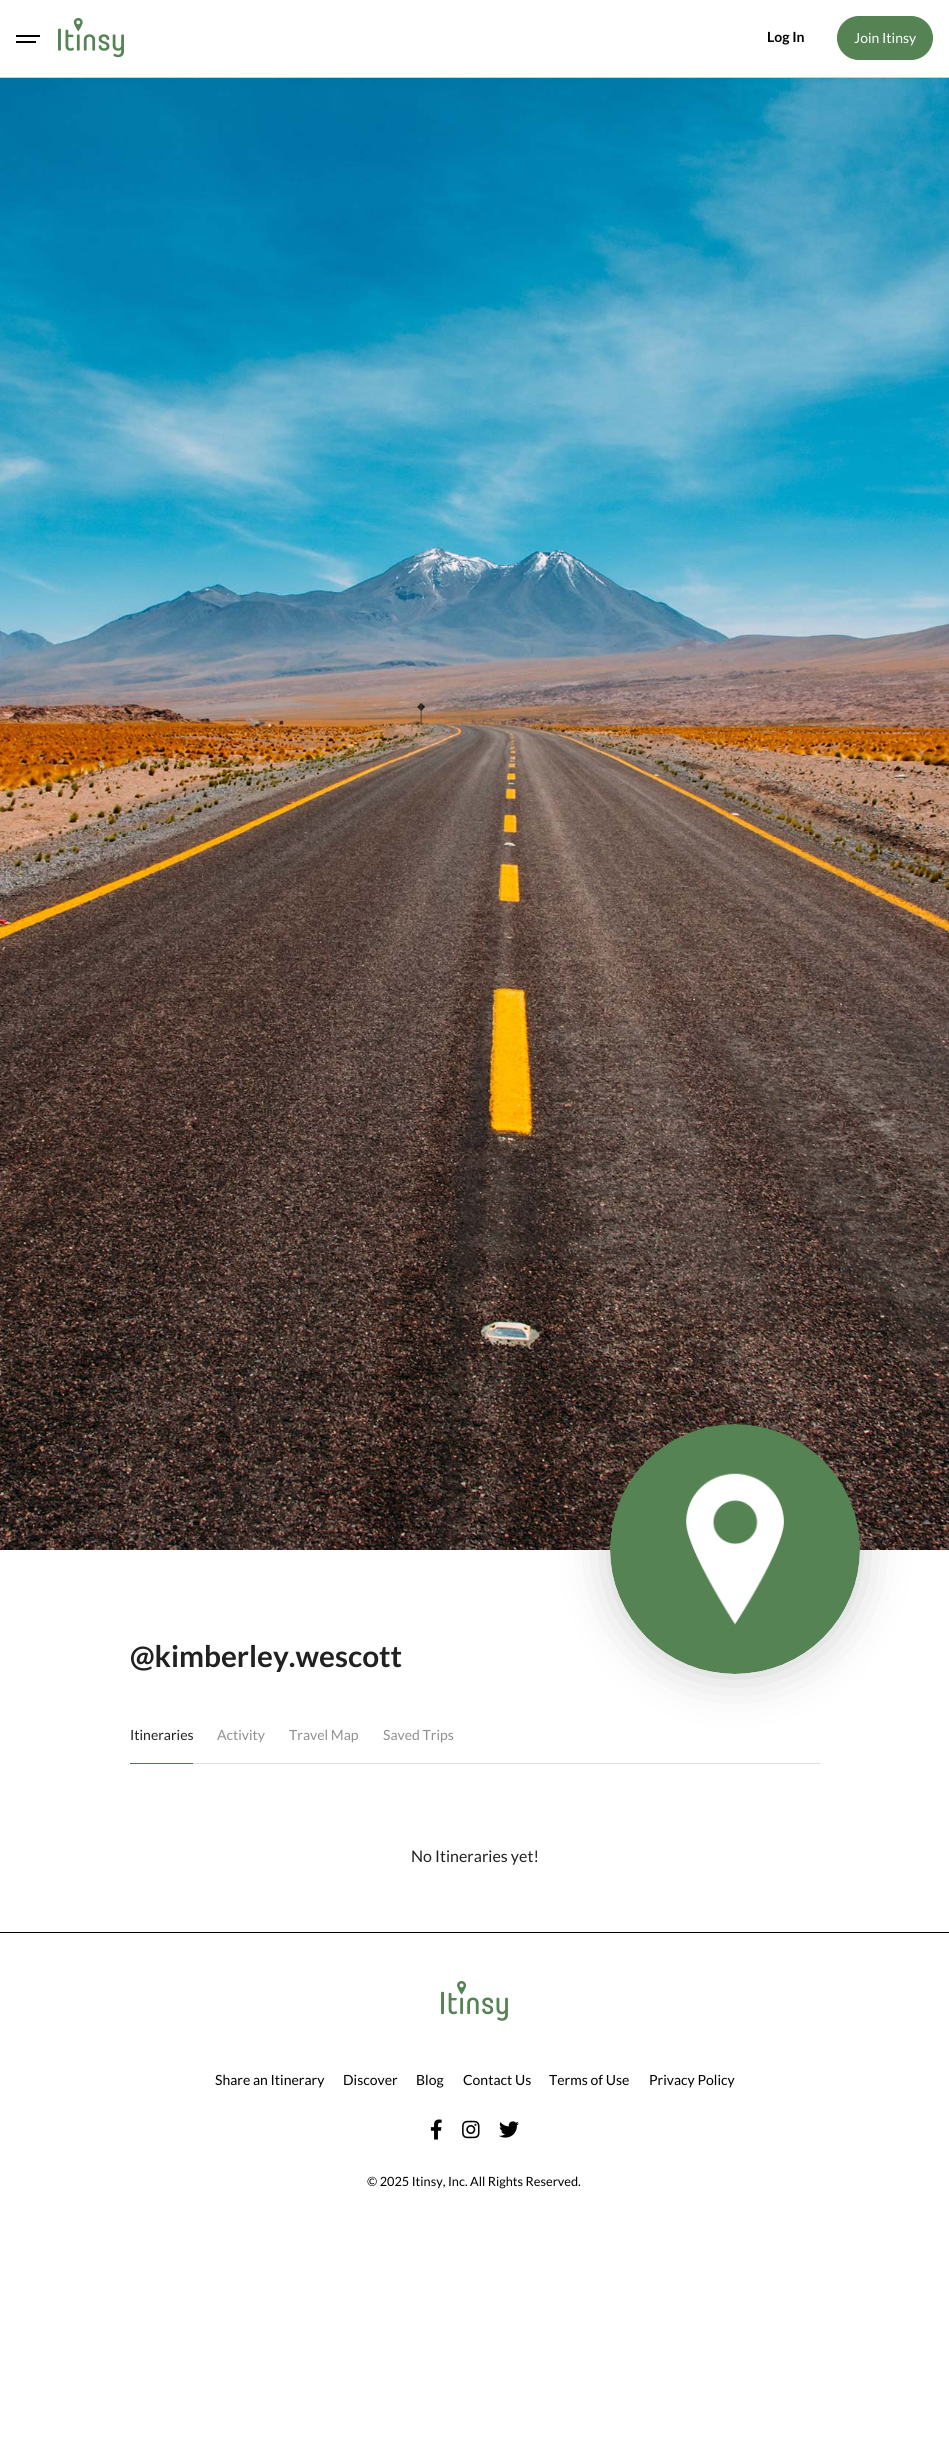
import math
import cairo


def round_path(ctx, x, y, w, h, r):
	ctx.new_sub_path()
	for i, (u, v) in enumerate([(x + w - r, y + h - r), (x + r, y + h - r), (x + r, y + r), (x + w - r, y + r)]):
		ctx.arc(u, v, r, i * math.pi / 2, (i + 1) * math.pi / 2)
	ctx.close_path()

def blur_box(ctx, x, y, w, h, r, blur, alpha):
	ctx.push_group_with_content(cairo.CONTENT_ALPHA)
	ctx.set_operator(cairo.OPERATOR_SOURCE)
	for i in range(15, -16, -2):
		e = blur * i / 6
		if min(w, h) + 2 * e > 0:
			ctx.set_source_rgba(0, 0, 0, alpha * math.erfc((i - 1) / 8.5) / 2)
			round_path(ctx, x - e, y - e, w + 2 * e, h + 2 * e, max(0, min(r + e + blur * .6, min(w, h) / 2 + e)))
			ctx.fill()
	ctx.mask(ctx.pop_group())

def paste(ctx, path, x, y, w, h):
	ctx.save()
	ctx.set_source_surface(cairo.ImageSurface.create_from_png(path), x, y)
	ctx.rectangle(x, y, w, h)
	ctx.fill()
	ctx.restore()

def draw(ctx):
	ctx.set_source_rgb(1, 1, 1)
	ctx.paint()
	ctx.set_source_rgb(0.808, 0.808, 0.808)
	ctx.rectangle(0, 77, 949, 1)
	ctx.fill()
	ctx.set_source_rgb(0, 0, 0)
	ctx.rectangle(16, 35, 24, 2)
	ctx.rectangle(16, 41, 20, 2)
	ctx.fill()
	paste(ctx, 'media/1.png', 58, 18, 66, 40)
	ctx.select_font_face('Lato', cairo.FONT_SLANT_NORMAL, cairo.FONT_WEIGHT_BOLD)
	ctx.set_font_size(14)
	ctx.move_to(767, 42)
	ctx.show_text('Log In')
	ctx.set_source_rgb(0.333, 0.514, 0.329)
	round_path(ctx, 837.5, 16.5, 95, 43, 21.5)
	ctx.fill_preserve()
	ctx.set_line_width(1)
	ctx.stroke()
	ctx.select_font_face('Lato')
	ctx.set_source_rgb(1, 1, 1)
	ctx.move_to(854, 43)
	ctx.show_text('Join Itinsy')
	paste(ctx, 'media/2.png', 0, 78, 949, 1472)
	ctx.select_font_face('Lato', cairo.FONT_SLANT_NORMAL, cairo.FONT_WEIGHT_BOLD)
	ctx.set_font_size(29.75)
	ctx.set_source_rgb(0.129, 0.129, 0.129)
	ctx.move_to(130, 1667)
	ctx.show_text('@kimberley.wescott')
	ctx.set_source_rgb(0, 0, 0)
	blur_box(ctx, 610, 1426, 250, 250, 125, 24, 0.2)
	paste(ctx, 'media/3.png', 610, 1424, 250, 250)
	ctx.set_source_rgb(0.871, 0.871, 0.871)
	ctx.rectangle(193, 1763, 627, 1)
	ctx.fill()
	ctx.set_source_rgb(0.329, 0.424, 0.514)
	ctx.rectangle(130, 1763, 63, 1)
	ctx.fill()
	ctx.select_font_face('Lato')
	ctx.set_font_size(14)
	ctx.set_source_rgb(0.129, 0.129, 0.129)
	ctx.move_to(130, 1740)
	ctx.show_text('Itineraries')
	ctx.set_source_rgb(0.565, 0.565, 0.565)
	for x, y, s in [
		(217, 1740, 'Activity'),
		(289, 1740, 'Travel Map'),
		(383, 1740, 'Saved Trips'),
	]:
		ctx.move_to(x, y)
		ctx.show_text(s)
	ctx.set_font_size(16)
	ctx.set_source_rgb(0.129, 0.129, 0.129)
	ctx.move_to(411, 1862)
	ctx.show_text('No Itineraries yet!')
	ctx.set_source_rgb(0, 0, 0)
	ctx.rectangle(0, 1932, 949, 1)
	ctx.fill()
	paste(ctx, 'media/4.png', 441, 1981, 67, 40)
	ctx.set_font_size(14)
	for x, y, s in [
		(215, 2085, 'Share an Itinerary'),
		(343, 2085, 'Discover'),
		(416, 2085, 'Blog'),
		(463, 2085, 'Contact Us'),
		(549, 2085, 'Terms of Use'),
		(649, 2085, 'Privacy Policy'),
	]:
		ctx.move_to(x, y)
		ctx.show_text(s)
	paste(ctx, 'media/5.png', 430, 2119, 12, 21)
	paste(ctx, 'media/6.png', 462, 2120, 18, 19)
	paste(ctx, 'media/7.png', 499, 2121, 20, 17)
	ctx.set_font_size(12.75)
	ctx.move_to(367, 2186)
	ctx.show_text('© 2025 Itinsy, Inc. All Rights Reserved.')


surface = cairo.ImageSurface(cairo.FORMAT_RGB24, 949, 2454)
ctx = cairo.Context(surface)
options = cairo.FontOptions()
options.set_hint_metrics(cairo.HINT_METRICS_OFF)
options.set_hint_style(cairo.HINT_STYLE_NONE)
ctx.set_font_options(options)
ctx.set_miter_limit(4)
draw(ctx)
surface.write_to_png('image.png')
